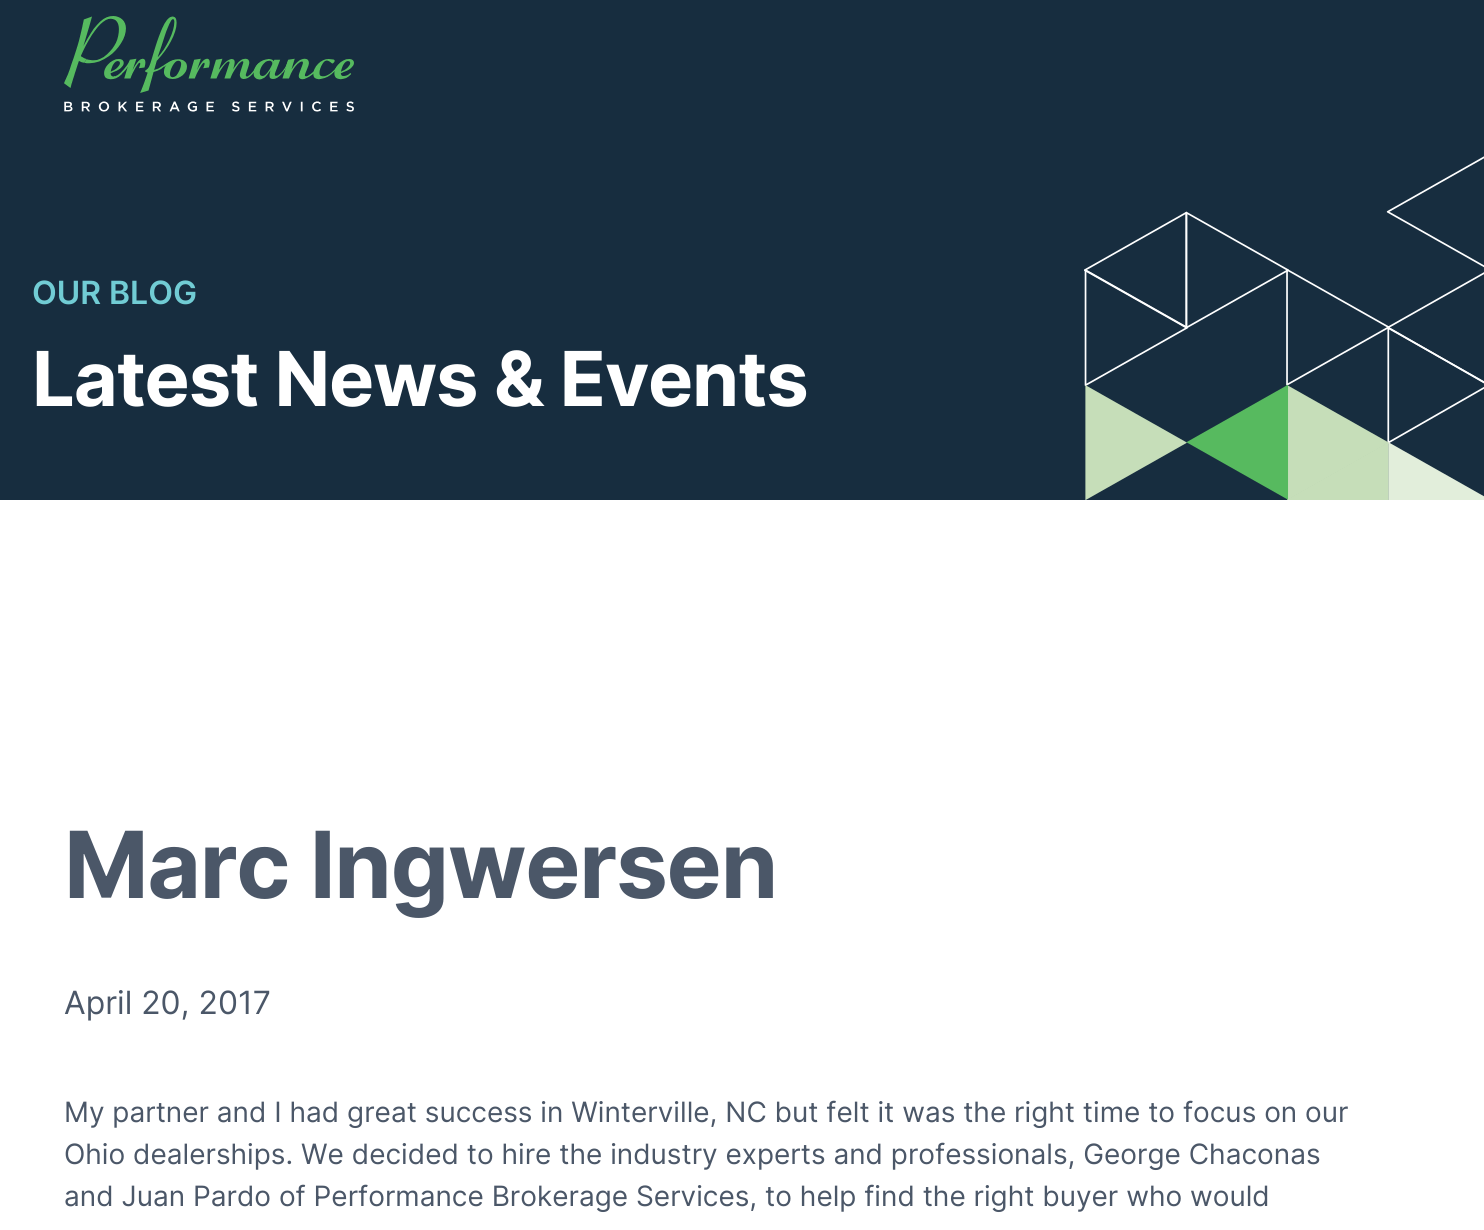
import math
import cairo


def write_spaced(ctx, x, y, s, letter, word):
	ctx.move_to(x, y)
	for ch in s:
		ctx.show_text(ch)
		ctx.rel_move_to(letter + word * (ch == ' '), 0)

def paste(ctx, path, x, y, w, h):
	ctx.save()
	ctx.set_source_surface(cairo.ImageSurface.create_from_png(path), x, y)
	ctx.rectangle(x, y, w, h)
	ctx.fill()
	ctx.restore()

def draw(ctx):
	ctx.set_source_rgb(1, 1, 1)
	ctx.paint()
	ctx.set_source_rgb(0.09, 0.176, 0.247)
	ctx.rectangle(0, 0, 1484, 500)
	ctx.fill()
	paste(ctx, 'media/1.png', 64, 16, 290, 96)
	paste(ctx, 'media/2.png', 1084, 156, 400, 344)
	ctx.select_font_face('Inter SemiBold')
	ctx.set_font_size(32)
	ctx.set_source_rgb(0.443, 0.8, 0.831)
	ctx.move_to(32, 304)
	ctx.show_text('OUR BLOG')
	ctx.select_font_face('Inter', cairo.FONT_SLANT_NORMAL, cairo.FONT_WEIGHT_BOLD)
	ctx.set_font_size(75.75)
	ctx.set_source_rgb(1, 1, 1)
	write_spaced(ctx, 32, 406, 'Latest News & Events', -1.25, 0)
	ctx.set_font_size(92.5)
	ctx.set_source_rgb(0.294, 0.341, 0.408)
	write_spaced(ctx, 64, 898, 'Marc Ingwersen', -1.25, 0)
	ctx.select_font_face('Inter')
	ctx.set_font_size(32)
	ctx.move_to(64, 1014)
	ctx.show_text('April 20, 2017')
	ctx.set_font_size(28)
	for x, y, s in [
		(64, 1122, 'My partner and I had great success in Winterville, NC but felt it was the right time to focus on our'),
		(64, 1164, 'Ohio dealerships. We decided to hire the industry experts and professionals, George Chaconas'),
		(64, 1206, 'and Juan Pardo of Performance Brokerage Services, to help find the right buyer who would'),
	]:
		ctx.move_to(x, y)
		ctx.show_text(s)


surface = cairo.ImageSurface(cairo.FORMAT_RGB24, 1484, 1230)
ctx = cairo.Context(surface)
options = cairo.FontOptions()
options.set_hint_metrics(cairo.HINT_METRICS_OFF)
options.set_hint_style(cairo.HINT_STYLE_NONE)
ctx.set_font_options(options)
ctx.set_miter_limit(4)
draw(ctx)
surface.write_to_png('image.png')
